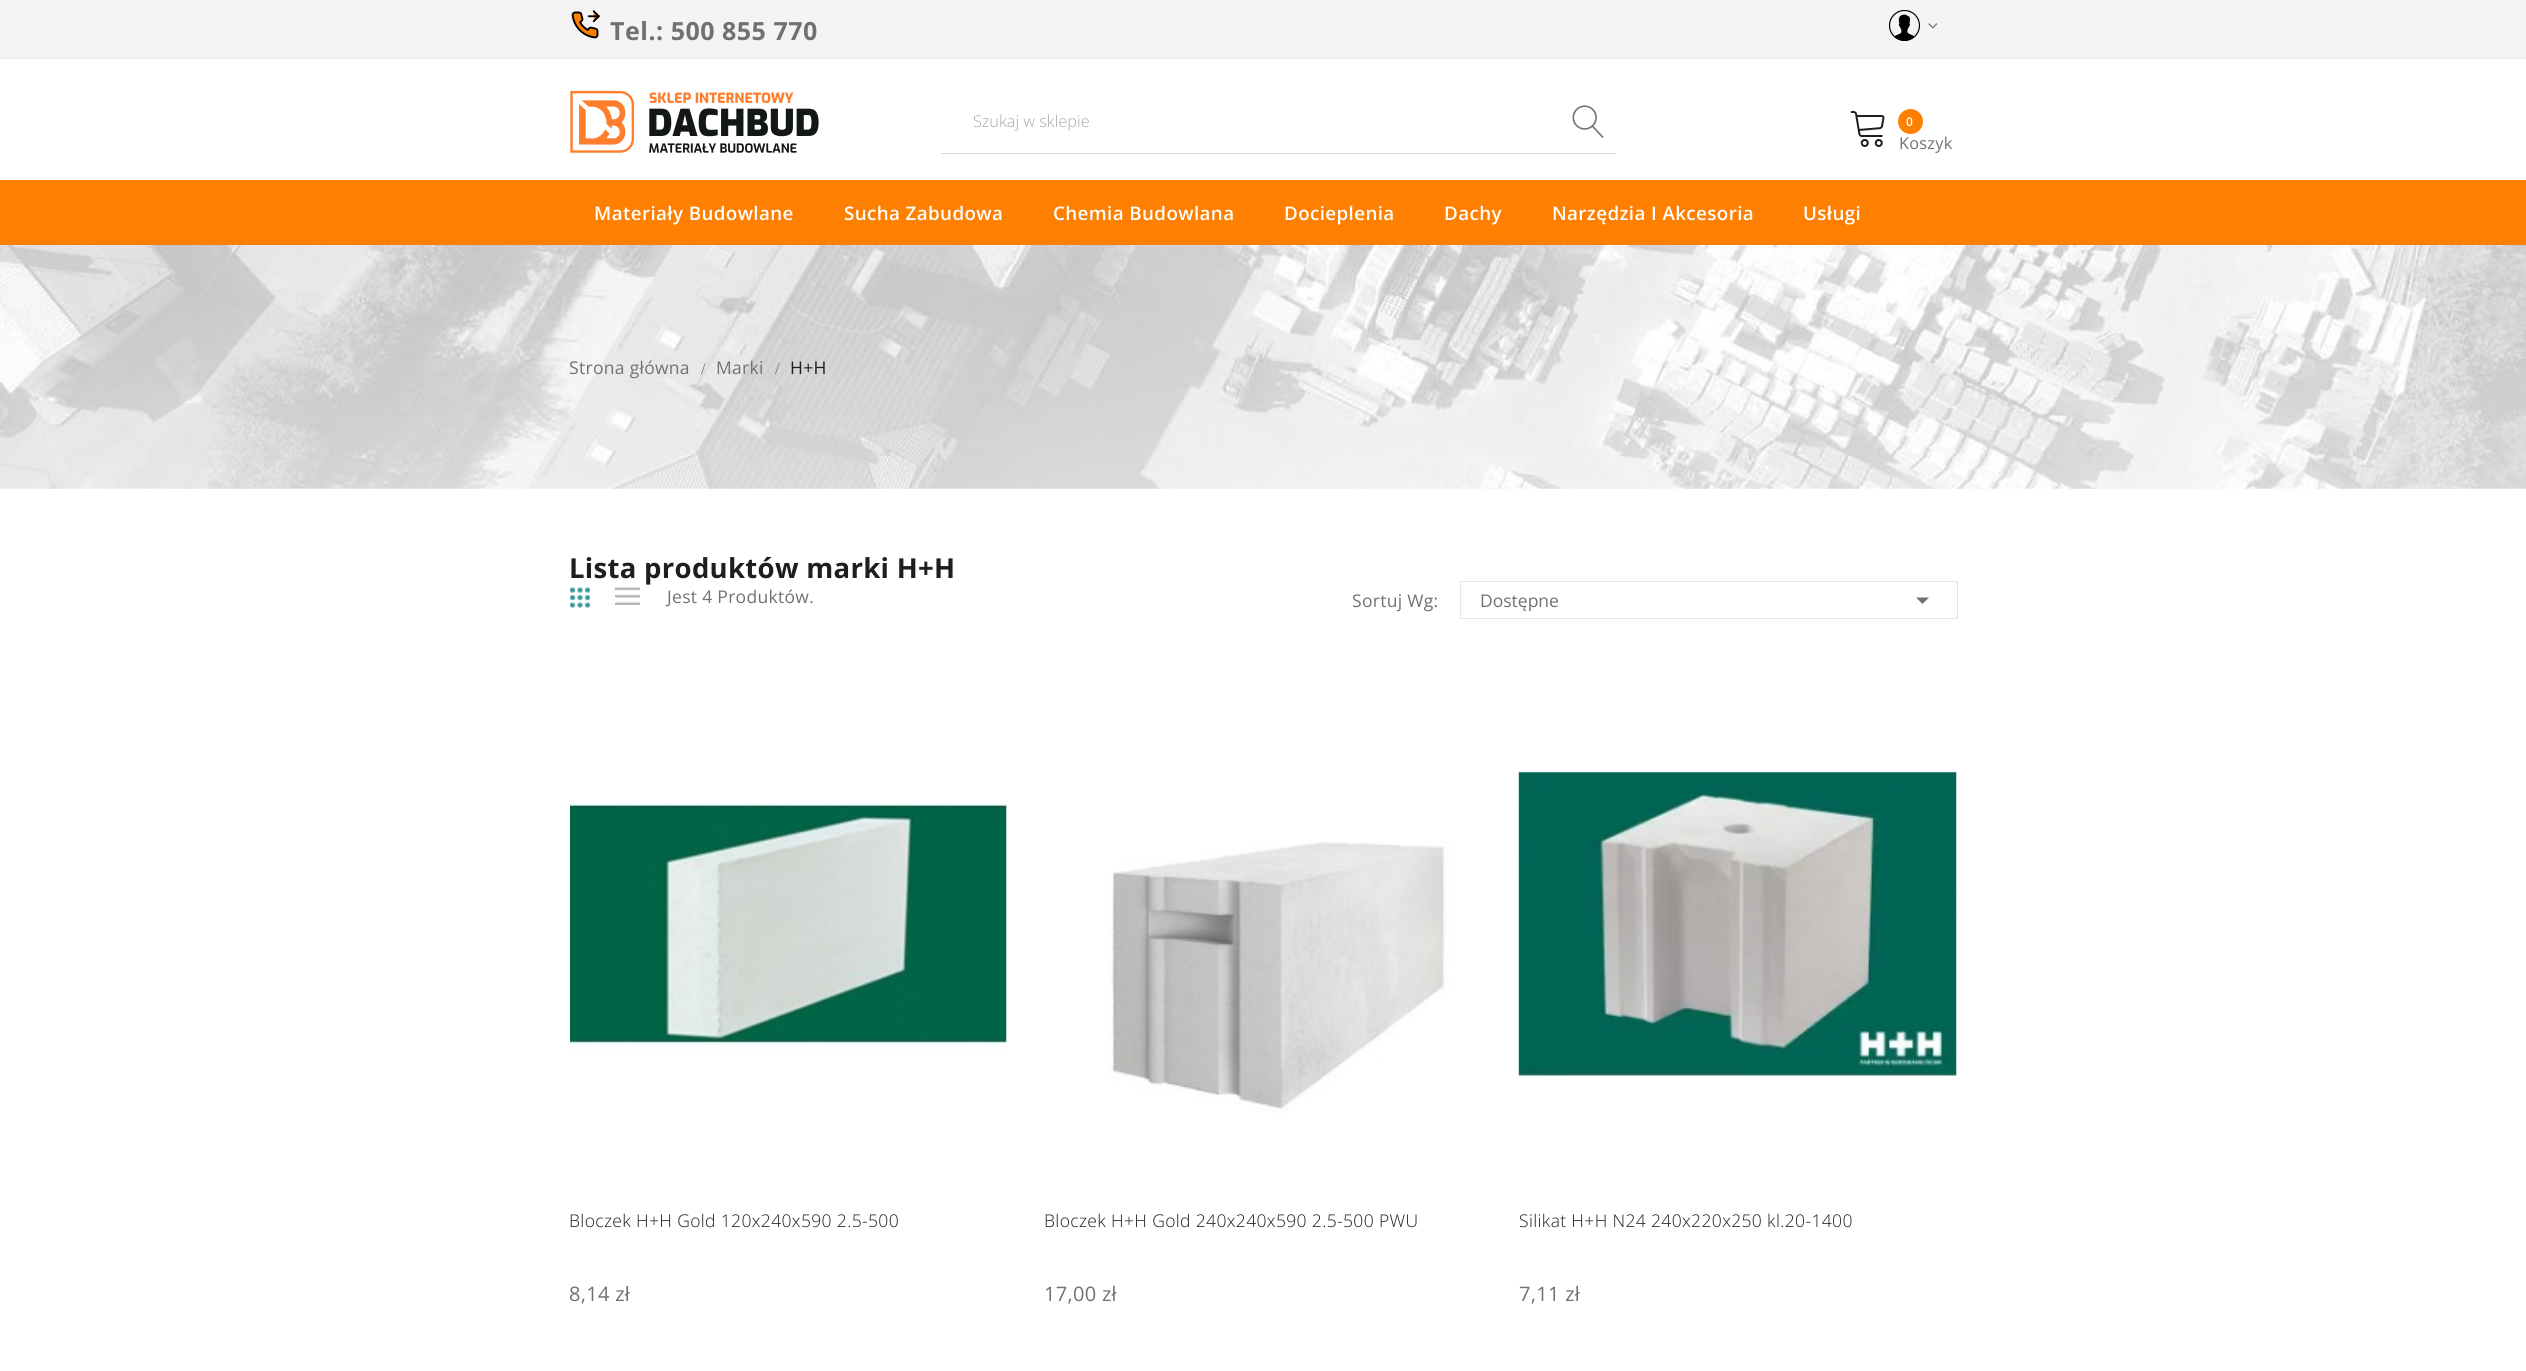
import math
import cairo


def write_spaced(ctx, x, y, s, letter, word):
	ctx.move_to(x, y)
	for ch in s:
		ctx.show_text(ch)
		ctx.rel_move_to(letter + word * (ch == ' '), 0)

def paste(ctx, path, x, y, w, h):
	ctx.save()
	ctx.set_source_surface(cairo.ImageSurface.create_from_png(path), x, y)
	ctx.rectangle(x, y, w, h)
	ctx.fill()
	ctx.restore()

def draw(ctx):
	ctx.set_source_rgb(1, 1, 1)
	ctx.paint()
	ctx.set_source_rgb(0.957, 0.957, 0.957)
	ctx.rectangle(0, 0, 2526, 58)
	ctx.fill()
	ctx.set_source_rgb(0.929, 0.929, 0.929)
	ctx.rectangle(0, 58, 2526, 1)
	ctx.fill()
	paste(ctx, 'media/1.png', 571, 10, 29, 29)
	ctx.select_font_face('Open Sans', cairo.FONT_SLANT_NORMAL, cairo.FONT_WEIGHT_BOLD)
	ctx.set_font_size(25)
	ctx.set_source_rgb(0.443, 0.443, 0.443)
	write_spaced(ctx, 610, 40, 'Tel.: 500 855 770', 0.5, 0)
	paste(ctx, 'media/2.png', 1889, 10, 31, 31)
	paste(ctx, 'media/3.png', 1928, 23, 10, 6)
	paste(ctx, 'media/4.png', 570, 90, 249, 63)
	ctx.set_source_rgb(0.851, 0.851, 0.851)
	ctx.rectangle(941, 153, 675, 1)
	ctx.fill()
	ctx.select_font_face('Open Sans Light')
	ctx.set_font_size(16.25)
	ctx.set_source_rgb(0.663, 0.659, 0.659)
	ctx.move_to(973, 127)
	ctx.show_text('Szukaj w sklepie')
	paste(ctx, 'media/5.png', 1572, 105, 32, 33)
	paste(ctx, 'media/6.png', 1850, 111, 35, 36)
	ctx.set_source_rgb(1, 0.502, 0.004)
	ctx.arc(1910.5, 121.5, 12.5, 0, 2 * math.pi)
	ctx.fill()
	ctx.select_font_face('Open Sans SemiBold')
	ctx.set_font_size(12)
	ctx.set_source_rgb(1, 1, 1)
	ctx.move_to(1906, 126)
	ctx.show_text('0')
	ctx.select_font_face('Open Sans')
	ctx.set_font_size(16.25)
	ctx.set_source_rgb(0.443, 0.443, 0.443)
	write_spaced(ctx, 1899, 149, 'Koszyk', 0.3, 0)
	ctx.set_source_rgb(1, 0.502, 0.004)
	ctx.rectangle(0, 180, 2526, 65)
	ctx.fill()
	ctx.select_font_face('Open Sans SemiBold')
	ctx.set_font_size(18.75)
	ctx.set_source_rgb(1, 1, 1)
	for x, y, s in [
		(594, 220, 'Materiały Budowlane'),
		(844, 220, 'Sucha Zabudowa'),
		(1053, 220, 'Chemia Budowlana'),
		(1284, 220, 'Docieplenia'),
		(1444, 220, 'Dachy'),
		(1552, 220, 'Narzędzia I Akcesoria'),
		(1803, 220, 'Usługi'),
	]:
		write_spaced(ctx, x, y, s, 0.4, 0)
	paste(ctx, 'media/7.png', 0, 245, 2526, 244)
	ctx.select_font_face('Open Sans')
	ctx.set_font_size(17.5)
	ctx.set_source_rgb(0.443, 0.443, 0.443)
	write_spaced(ctx, 569, 374, 'Strona główna', 0.3, 0)
	ctx.select_font_face('Liberation Serif')
	ctx.set_font_size(16.25)
	write_spaced(ctx, 701, 374, '/', 0.3, 0)
	ctx.select_font_face('Open Sans')
	ctx.set_font_size(17.5)
	write_spaced(ctx, 716, 374, 'Marki', 0.3, 0)
	ctx.select_font_face('Liberation Serif')
	ctx.set_font_size(16.25)
	write_spaced(ctx, 775, 374, '/', 0.3, 0)
	ctx.select_font_face('Open Sans')
	ctx.set_font_size(17.5)
	ctx.set_source_rgb(0.118, 0.118, 0.118)
	write_spaced(ctx, 790, 374, 'H+H', 0.3, 0)
	ctx.select_font_face('Open Sans', cairo.FONT_SLANT_NORMAL, cairo.FONT_WEIGHT_BOLD)
	ctx.set_font_size(27.5)
	write_spaced(ctx, 569, 578, 'Lista produktów marki H+H', 0.3, 0)
	paste(ctx, 'media/8.png', 570, 587, 20, 21)
	paste(ctx, 'media/9.png', 615, 587, 25, 18)
	ctx.select_font_face('Open Sans')
	ctx.set_font_size(17.5)
	ctx.set_source_rgb(0.443, 0.443, 0.443)
	write_spaced(ctx, 667, 603, 'Jest 4 Produktów.', 0.3, 0)
	write_spaced(ctx, 1352, 607, 'Sortuj Wg:', 0.3, 0)
	ctx.rectangle(1460.5, 581.5, 497, 37)
	ctx.set_source_rgb(0.898, 0.898, 0.898)
	ctx.set_line_width(1)
	ctx.stroke()
	ctx.set_source_rgb(0.443, 0.443, 0.443)
	ctx.move_to(1480, 607)
	ctx.show_text('Dostępne')
	ctx.set_source_rgb(0.447, 0.447, 0.447)
	ctx.new_path()
	ctx.move_to(1916, 597.5)
	ctx.line_to(1929, 597.5)
	ctx.line_to(1922.5, 604)
	ctx.close_path()
	ctx.fill()
	paste(ctx, 'media/10.png', 570, 802, 437, 251)
	ctx.select_font_face('Open Sans Light')
	ctx.set_source_rgb(0.118, 0.118, 0.118)
	write_spaced(ctx, 569, 1227, 'Bloczek H+H Gold 120x240x590 2.5-500', 0.35, 0)
	ctx.select_font_face('Open Sans')
	ctx.set_font_size(20)
	ctx.set_source_rgb(0.443, 0.443, 0.443)
	write_spaced(ctx, 569, 1301, '8,14 zł', 0.3, 0)
	paste(ctx, 'media/11.png', 1110, 841, 340, 272)
	ctx.select_font_face('Open Sans Light')
	ctx.set_font_size(17.5)
	ctx.set_source_rgb(0.118, 0.118, 0.118)
	write_spaced(ctx, 1044, 1227, 'Bloczek H+H Gold 240x240x590 2.5-500 PWU', 0.35, 0)
	ctx.select_font_face('Open Sans')
	ctx.set_font_size(20)
	ctx.set_source_rgb(0.443, 0.443, 0.443)
	write_spaced(ctx, 1044, 1301, '17,00 zł', 0.3, 0)
	paste(ctx, 'media/12.png', 1518, 771, 439, 305)
	ctx.select_font_face('Open Sans Light')
	ctx.set_font_size(17.5)
	ctx.set_source_rgb(0.118, 0.118, 0.118)
	write_spaced(ctx, 1519, 1227, 'Silikat H+H N24 240x220x250 kl.20-1400', 0.35, 0)
	ctx.select_font_face('Open Sans')
	ctx.set_font_size(20)
	ctx.set_source_rgb(0.443, 0.443, 0.443)
	write_spaced(ctx, 1519, 1301, '7,11 zł', 0.3, 0)


surface = cairo.ImageSurface(cairo.FORMAT_RGB24, 2526, 1371)
ctx = cairo.Context(surface)
options = cairo.FontOptions()
options.set_hint_metrics(cairo.HINT_METRICS_OFF)
options.set_hint_style(cairo.HINT_STYLE_NONE)
ctx.set_font_options(options)
ctx.set_miter_limit(4)
draw(ctx)
surface.write_to_png('image.png')
